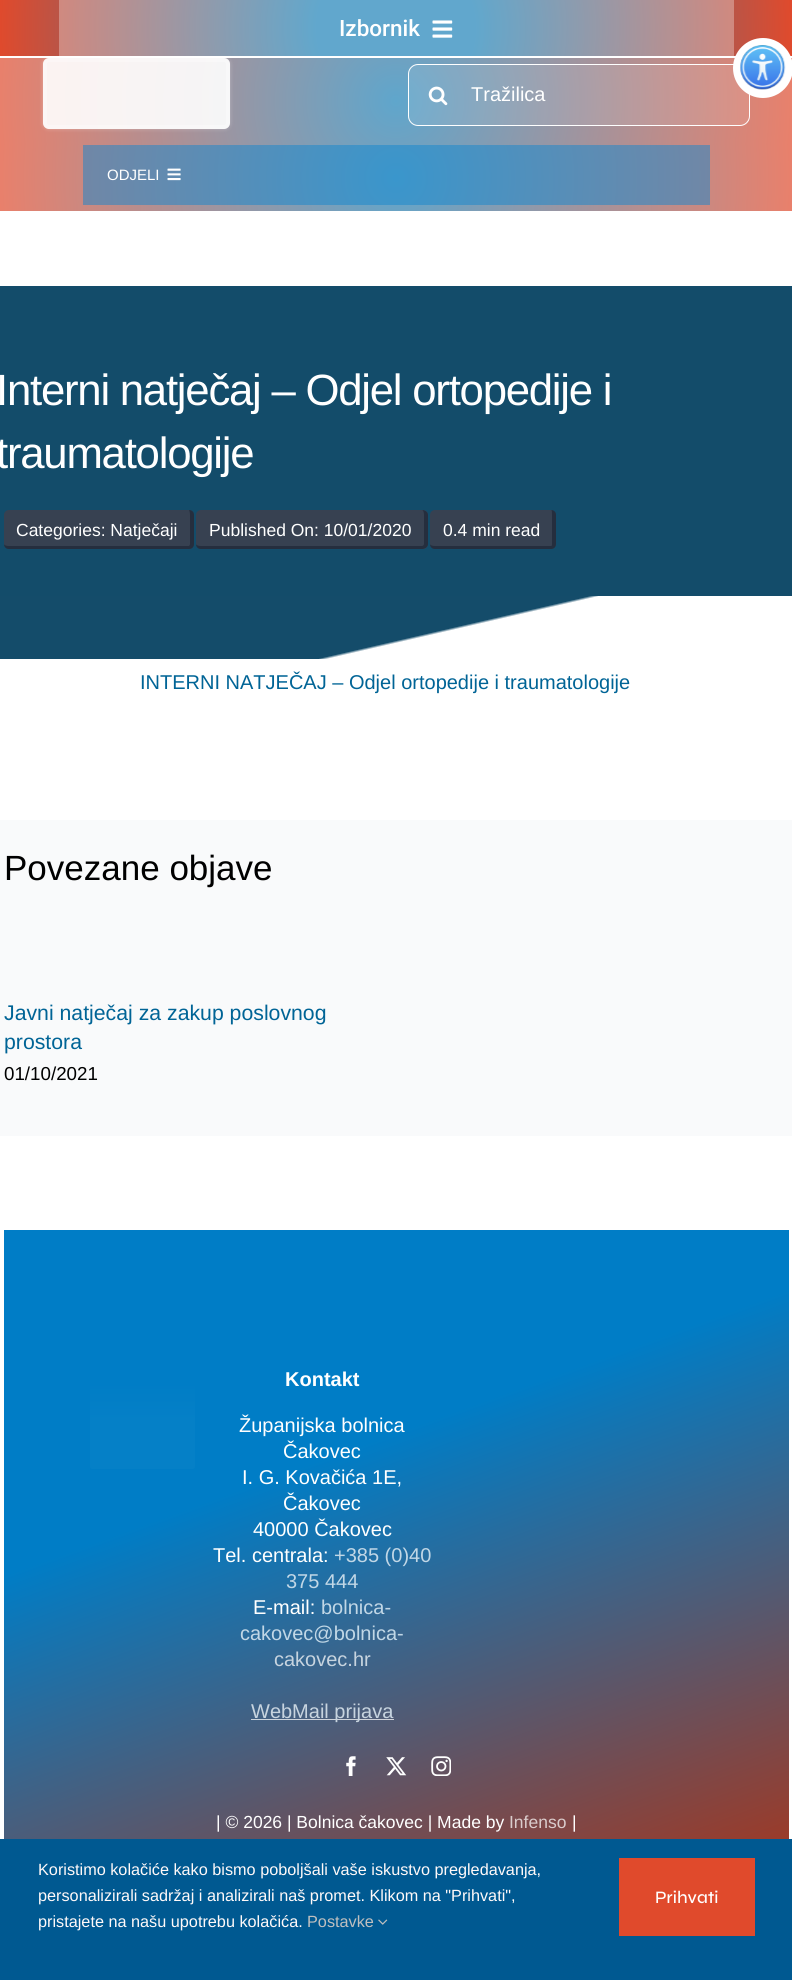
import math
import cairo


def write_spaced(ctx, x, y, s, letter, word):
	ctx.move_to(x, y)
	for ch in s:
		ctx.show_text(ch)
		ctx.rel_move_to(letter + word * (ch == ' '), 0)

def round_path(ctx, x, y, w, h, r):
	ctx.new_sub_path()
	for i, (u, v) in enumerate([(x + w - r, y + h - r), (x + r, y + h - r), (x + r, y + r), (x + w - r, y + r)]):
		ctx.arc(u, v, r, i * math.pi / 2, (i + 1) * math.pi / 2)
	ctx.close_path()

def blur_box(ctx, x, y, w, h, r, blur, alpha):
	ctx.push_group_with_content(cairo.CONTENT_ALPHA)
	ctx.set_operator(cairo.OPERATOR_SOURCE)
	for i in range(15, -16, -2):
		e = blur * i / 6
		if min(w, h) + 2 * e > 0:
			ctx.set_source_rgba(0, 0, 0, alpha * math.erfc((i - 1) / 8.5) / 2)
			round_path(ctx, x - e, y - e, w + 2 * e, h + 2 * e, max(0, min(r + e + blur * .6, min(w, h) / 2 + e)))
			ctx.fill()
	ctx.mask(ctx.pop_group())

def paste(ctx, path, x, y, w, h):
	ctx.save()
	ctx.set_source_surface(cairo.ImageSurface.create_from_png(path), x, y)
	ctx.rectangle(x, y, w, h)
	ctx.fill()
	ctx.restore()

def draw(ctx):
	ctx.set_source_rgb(1, 1, 1)
	ctx.paint()
	gradient = cairo.RadialGradient(396, 101, 0, 396, 101, 399)
	gradient.add_color_stop_rgba(0, 0.373, 0.651, 0.8, 1)
	gradient.add_color_stop_rgba(1, 0.914, 0.502, 0.42, 1)
	ctx.set_source(gradient)
	ctx.rectangle(0, 58, 792, 87)
	ctx.fill()
	ctx.save()
	ctx.set_fill_rule(cairo.FILL_RULE_EVEN_ODD)
	ctx.new_path()
	ctx.move_to(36, 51)
	ctx.line_to(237, 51)
	ctx.line_to(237, 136)
	ctx.line_to(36, 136)
	ctx.close_path()
	ctx.move_to(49, 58)
	ctx.line_to(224, 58)
	ctx.curve_to(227.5, 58, 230, 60.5, 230, 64)
	ctx.line_to(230, 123)
	ctx.curve_to(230, 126.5, 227.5, 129, 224, 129)
	ctx.line_to(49, 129)
	ctx.curve_to(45.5, 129, 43, 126.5, 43, 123)
	ctx.line_to(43, 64)
	ctx.curve_to(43, 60.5, 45.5, 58, 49, 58)
	ctx.close_path()
	ctx.clip()
	ctx.set_source_rgb(1, 1, 1)
	blur_box(ctx, 43, 58, 187, 71, 6, 2, 0.3)
	ctx.restore()
	gradient = cairo.RadialGradient(396, 28, 0, 396, 28, 397)
	gradient.add_color_stop_rgba(0.2, 0.102, 0.502, 0.714, 1)
	gradient.add_color_stop_rgba(1, 0.878, 0.29, 0.173, 1)
	ctx.set_source(gradient)
	ctx.rectangle(0, 0, 792, 56)
	ctx.fill()
	ctx.set_source_rgba(1, 1, 1, 0.31)
	ctx.rectangle(59, 0, 675, 56)
	ctx.fill()
	ctx.select_font_face('Roboto Medium')
	ctx.set_font_size(22.5)
	ctx.set_source_rgb(1, 1, 1)
	ctx.move_to(339, 36)
	ctx.show_text('Izbornik')
	paste(ctx, 'media/1.png', 432, 20, 21, 18)
	ctx.set_source_rgba(1, 1, 1, 0.9)
	round_path(ctx, 43, 58, 187, 71, 6)
	ctx.fill()
	round_path(ctx, 45, 60, 183, 67, 4)
	ctx.set_source_rgba(1, 1, 1, 0.29)
	ctx.set_line_width(4)
	ctx.stroke()
	ctx.set_source_rgba(1, 1, 1, 0.1)
	round_path(ctx, 408.5, 64.5, 341, 61, 9.5)
	ctx.fill_preserve()
	ctx.set_source_rgb(1, 1, 1)
	ctx.set_line_width(1)
	ctx.stroke()
	paste(ctx, 'media/2.png', 428, 86, 20, 20)
	ctx.select_font_face('Liberation Sans')
	ctx.set_font_size(20)
	ctx.move_to(471, 101)
	ctx.show_text('Tražilica')
	gradient = cairo.RadialGradient(396, 178, 0, 396, 178, 398)
	gradient.add_color_stop_rgba(0, 0.373, 0.651, 0.8, 1)
	gradient.add_color_stop_rgba(1, 0.914, 0.502, 0.42, 1)
	ctx.set_source(gradient)
	ctx.rectangle(0, 145, 792, 66)
	ctx.fill()
	gradient = cairo.RadialGradient(396, 178, 0, 396, 178, 398)
	gradient.add_color_stop_rgba(0, 0.227, 0.588, 0.8, 1)
	gradient.add_color_stop_rgba(1, 0.498, 0.514, 0.612, 1)
	ctx.set_source(gradient)
	ctx.rectangle(83, 145, 627, 60)
	ctx.fill()
	ctx.set_font_size(15)
	ctx.set_source_rgb(1, 1, 1)
	ctx.move_to(107, 180)
	ctx.show_text('ODJELI')
	paste(ctx, 'media/3.png', 167, 168, 14, 13)
	ctx.set_source_rgb(0.078, 0.298, 0.416)
	ctx.rectangle(0, 286, 792, 310)
	ctx.fill()
	ctx.set_font_size(43.75)
	ctx.set_source_rgb(1, 1, 1)
	write_spaced(ctx, -4, 405, 'Interni natječaj – Odjel ortopedije i', -1.25, 0)
	write_spaced(ctx, -4, 468, 'traumatologije', -1.25, 0)
	ctx.set_source_rgb(0.216, 0.255, 0.318)
	round_path(ctx, 4, 510, 190, 39, 5)
	ctx.fill()
	ctx.set_source_rgba(0.086, 0.118, 0.18, 0.52)
	ctx.set_fill_rule(cairo.FILL_RULE_EVEN_ODD)
	ctx.new_path()
	ctx.move_to(9, 510)
	ctx.line_to(189, 510)
	ctx.curve_to(192, 510, 194, 512, 194, 515)
	ctx.line_to(194, 544)
	ctx.curve_to(194, 547, 192, 549, 189, 549)
	ctx.line_to(9, 549)
	ctx.curve_to(6, 549, 4, 547, 4, 544)
	ctx.line_to(4, 515)
	ctx.curve_to(4, 512, 6, 510, 9, 510)
	ctx.close_path()
	ctx.move_to(9, 510)
	ctx.line_to(189, 510)
	ctx.curve_to(189, 510, 190, 512, 190, 515)
	ctx.line_to(190, 544)
	ctx.curve_to(190, 545, 189, 546, 189, 546)
	ctx.line_to(9, 546)
	ctx.curve_to(6, 546, 4, 545, 4, 544)
	ctx.line_to(4, 515)
	ctx.curve_to(4, 512, 6, 510, 9, 510)
	ctx.close_path()
	ctx.fill()
	ctx.set_font_size(17.5)
	ctx.set_source_rgb(1, 1, 1)
	ctx.move_to(16, 536)
	ctx.show_text('Categories: Natječaji')
	ctx.set_source_rgb(0.216, 0.255, 0.318)
	round_path(ctx, 196, 510, 232, 39, 5)
	ctx.fill()
	ctx.set_source_rgba(0.086, 0.118, 0.18, 0.52)
	ctx.new_path()
	ctx.move_to(201, 510)
	ctx.line_to(422, 510)
	ctx.curve_to(425, 510, 428, 512, 428, 515)
	ctx.line_to(428, 544)
	ctx.curve_to(428, 547, 425, 549, 422, 549)
	ctx.line_to(201, 549)
	ctx.curve_to(198, 549, 196, 547, 196, 544)
	ctx.line_to(196, 515)
	ctx.curve_to(196, 512, 198, 510, 201, 510)
	ctx.close_path()
	ctx.move_to(201, 510)
	ctx.line_to(422, 510)
	ctx.curve_to(423, 510, 424, 512, 424, 515)
	ctx.line_to(424, 544)
	ctx.curve_to(424, 545, 423, 546, 422, 546)
	ctx.line_to(201, 546)
	ctx.curve_to(198, 546, 196, 545, 196, 544)
	ctx.line_to(196, 515)
	ctx.curve_to(196, 512, 198, 510, 201, 510)
	ctx.close_path()
	ctx.fill()
	ctx.set_source_rgb(1, 1, 1)
	ctx.move_to(209, 536)
	ctx.show_text('Published On: 10/01/2020')
	ctx.set_source_rgb(0.216, 0.255, 0.318)
	round_path(ctx, 430, 510, 126, 39, 5)
	ctx.fill()
	ctx.set_source_rgba(0.086, 0.118, 0.18, 0.52)
	ctx.new_path()
	ctx.move_to(435, 510)
	ctx.line_to(551, 510)
	ctx.curve_to(554, 510, 556, 512, 556, 515)
	ctx.line_to(556, 544)
	ctx.curve_to(556, 547, 554, 549, 551, 549)
	ctx.line_to(435, 549)
	ctx.curve_to(432, 549, 430, 547, 430, 544)
	ctx.line_to(430, 515)
	ctx.curve_to(430, 512, 432, 510, 435, 510)
	ctx.close_path()
	ctx.move_to(435, 510)
	ctx.line_to(551, 510)
	ctx.curve_to(552, 510, 552, 512, 552, 515)
	ctx.line_to(552, 544)
	ctx.curve_to(552, 545, 552, 546, 551, 546)
	ctx.line_to(435, 546)
	ctx.curve_to(432, 546, 430, 545, 430, 544)
	ctx.line_to(430, 515)
	ctx.curve_to(430, 512, 432, 510, 435, 510)
	ctx.close_path()
	ctx.fill()
	ctx.set_source_rgb(1, 1, 1)
	ctx.move_to(443, 536)
	ctx.show_text('0.4 min read')
	gradient = cairo.LinearGradient(368, 504, 425, 751)
	gradient.add_color_stop_rgba(0.55, 0.078, 0.298, 0.416, 1)
	gradient.add_color_stop_rgba(0.56, 1, 1, 1, 1)
	ctx.set_source(gradient)
	ctx.rectangle(0, 596, 598, 63)
	ctx.fill()
	ctx.set_font_size(20)
	ctx.set_source_rgb(0, 0.392, 0.588)
	ctx.move_to(140, 689)
	ctx.show_text('INTERNI NATJEČAJ – Odjel ortopedije i traumatologije')
	ctx.set_source_rgb(0.976, 0.98, 0.984)
	ctx.rectangle(0, 820, 792, 316)
	ctx.fill()
	ctx.set_font_size(35)
	ctx.set_source_rgb(0, 0, 0)
	ctx.move_to(4, 880)
	ctx.show_text('Povezane objave')
	ctx.set_font_size(21.25)
	ctx.set_source_rgb(0, 0.392, 0.588)
	ctx.move_to(4, 1020)
	ctx.show_text('Javni natječaj za zakup poslovnog')
	ctx.move_to(4, 1049)
	ctx.show_text('prostora')
	ctx.set_font_size(18.75)
	ctx.set_source_rgb(0, 0, 0)
	ctx.move_to(4, 1080)
	ctx.show_text('01/10/2021')
	gradient = cairo.LinearGradient(233, 1147, 559, 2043)
	gradient.add_color_stop_rgba(0.34, 0, 0.49, 0.776, 1)
	gradient.add_color_stop_rgba(1, 0.737, 0.176, 0.031, 1)
	ctx.set_source(gradient)
	ctx.rectangle(4, 1230, 785, 609)
	ctx.fill()
	gradient = cairo.LinearGradient(233, 1147, 559, 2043)
	gradient.add_color_stop_rgba(0.34, 0.722, 0.859, 0.937, 1)
	gradient.add_color_stop_rgba(1, 0.925, 0.769, 0.729, 1)
	ctx.set_source(gradient)
	ctx.rectangle(251, 1719, 143, 1)
	ctx.fill()
	gradient = cairo.LinearGradient(143, 1355, 143, 1469)
	gradient.add_color_stop_rgba(0.24, 0, 0.49, 0.776, 1)
	gradient.add_color_stop_rgba(0.58, 0.02, 0.502, 0.78, 1)
	ctx.set_source(gradient)
	round_path(ctx, 90, 1355, 105, 114, 2.5)
	ctx.fill()
	ctx.select_font_face('Liberation Sans', cairo.FONT_SLANT_NORMAL, cairo.FONT_WEIGHT_BOLD)
	ctx.set_font_size(20)
	ctx.set_source_rgb(1, 1, 1)
	ctx.move_to(285, 1386)
	ctx.show_text('Kontakt')
	ctx.select_font_face('Liberation Sans')
	for x, y, s in [
		(239, 1432, 'Županijska bolnica'),
		(283, 1458, 'Čakovec'),
		(242, 1484, 'I. G. Kovačića 1E,'),
		(283, 1510, 'Čakovec'),
		(253, 1536, '40000 Čakovec'),
		(213, 1562, 'Tel. centrala:'),
	]:
		ctx.move_to(x, y)
		ctx.show_text(s)
	ctx.set_source_rgb(0.757, 0.843, 0.902)
	ctx.move_to(334, 1562)
	ctx.show_text('+385 (0)40')
	ctx.move_to(286, 1588)
	ctx.show_text('375 444')
	ctx.set_source_rgb(1, 1, 1)
	ctx.move_to(253, 1614)
	ctx.show_text('E-mail:')
	ctx.set_source_rgb(0.757, 0.843, 0.902)
	ctx.move_to(321, 1614)
	ctx.show_text('bolnica-')
	ctx.move_to(240, 1640)
	ctx.show_text('cakovec@bolnica-')
	ctx.set_source_rgb(0.78, 0.831, 0.875)
	ctx.move_to(274, 1666)
	ctx.show_text('cakovec.hr')
	ctx.move_to(251, 1718)
	ctx.show_text('WebMail prijava')
	paste(ctx, 'media/4.png', 346, 1756, 10, 20)
	paste(ctx, 'media/5.png', 386, 1757, 21, 19)
	paste(ctx, 'media/6.png', 431, 1756, 20, 20)
	ctx.set_font_size(17.5)
	ctx.set_source_rgb(1, 1, 1)
	ctx.move_to(216, 1828)
	ctx.show_text('| © 2026 | Bolnica čakovec | Made by')
	ctx.set_source_rgb(0.855, 0.8, 0.8)
	ctx.move_to(509, 1828)
	ctx.show_text('Infenso')
	ctx.set_source_rgb(1, 1, 1)
	ctx.move_to(572, 1828)
	ctx.show_text('|')
	ctx.new_path()
	ctx.arc(763, 68, 30, 0, 2 * math.pi)
	ctx.fill()
	paste(ctx, 'media/7.png', 740, 45, 46, 45)
	ctx.set_source_rgb(0, 0.349, 0.569)
	ctx.rectangle(0, 1839, 792, 141)
	ctx.fill()
	ctx.set_font_size(16.25)
	ctx.set_source_rgb(1, 0.976, 0.976)
	for x, y, s in [
		(38, 1875, 'Koristimo kolačiće kako bismo poboljšali vaše iskustvo pregledavanja,'),
		(38, 1901, 'personalizirali sadržaj i analizirali naš promet. Klikom na "Prihvati",'),
		(38, 1927, 'pristajete na našu upotrebu kolačića.'),
	]:
		ctx.move_to(x, y)
		ctx.show_text(s)
	ctx.set_source_rgb(0.749, 0.749, 0.749)
	ctx.move_to(307, 1927)
	ctx.show_text('Postavke')
	paste(ctx, 'media/8.png', 378, 1919, 10, 6)
	ctx.set_source_rgb(0.878, 0.29, 0.173)
	ctx.rectangle(619, 1858, 136, 78)
	ctx.fill()
	ctx.select_font_face('Syne Medium')
	ctx.set_font_size(17.5)
	ctx.set_source_rgb(1, 1, 1)
	ctx.move_to(655, 1903)
	ctx.show_text('Prihvati')


surface = cairo.ImageSurface(cairo.FORMAT_RGB24, 792, 1980)
ctx = cairo.Context(surface)
options = cairo.FontOptions()
options.set_hint_metrics(cairo.HINT_METRICS_OFF)
options.set_hint_style(cairo.HINT_STYLE_NONE)
ctx.set_font_options(options)
ctx.set_miter_limit(4)
draw(ctx)
surface.write_to_png('image.png')
